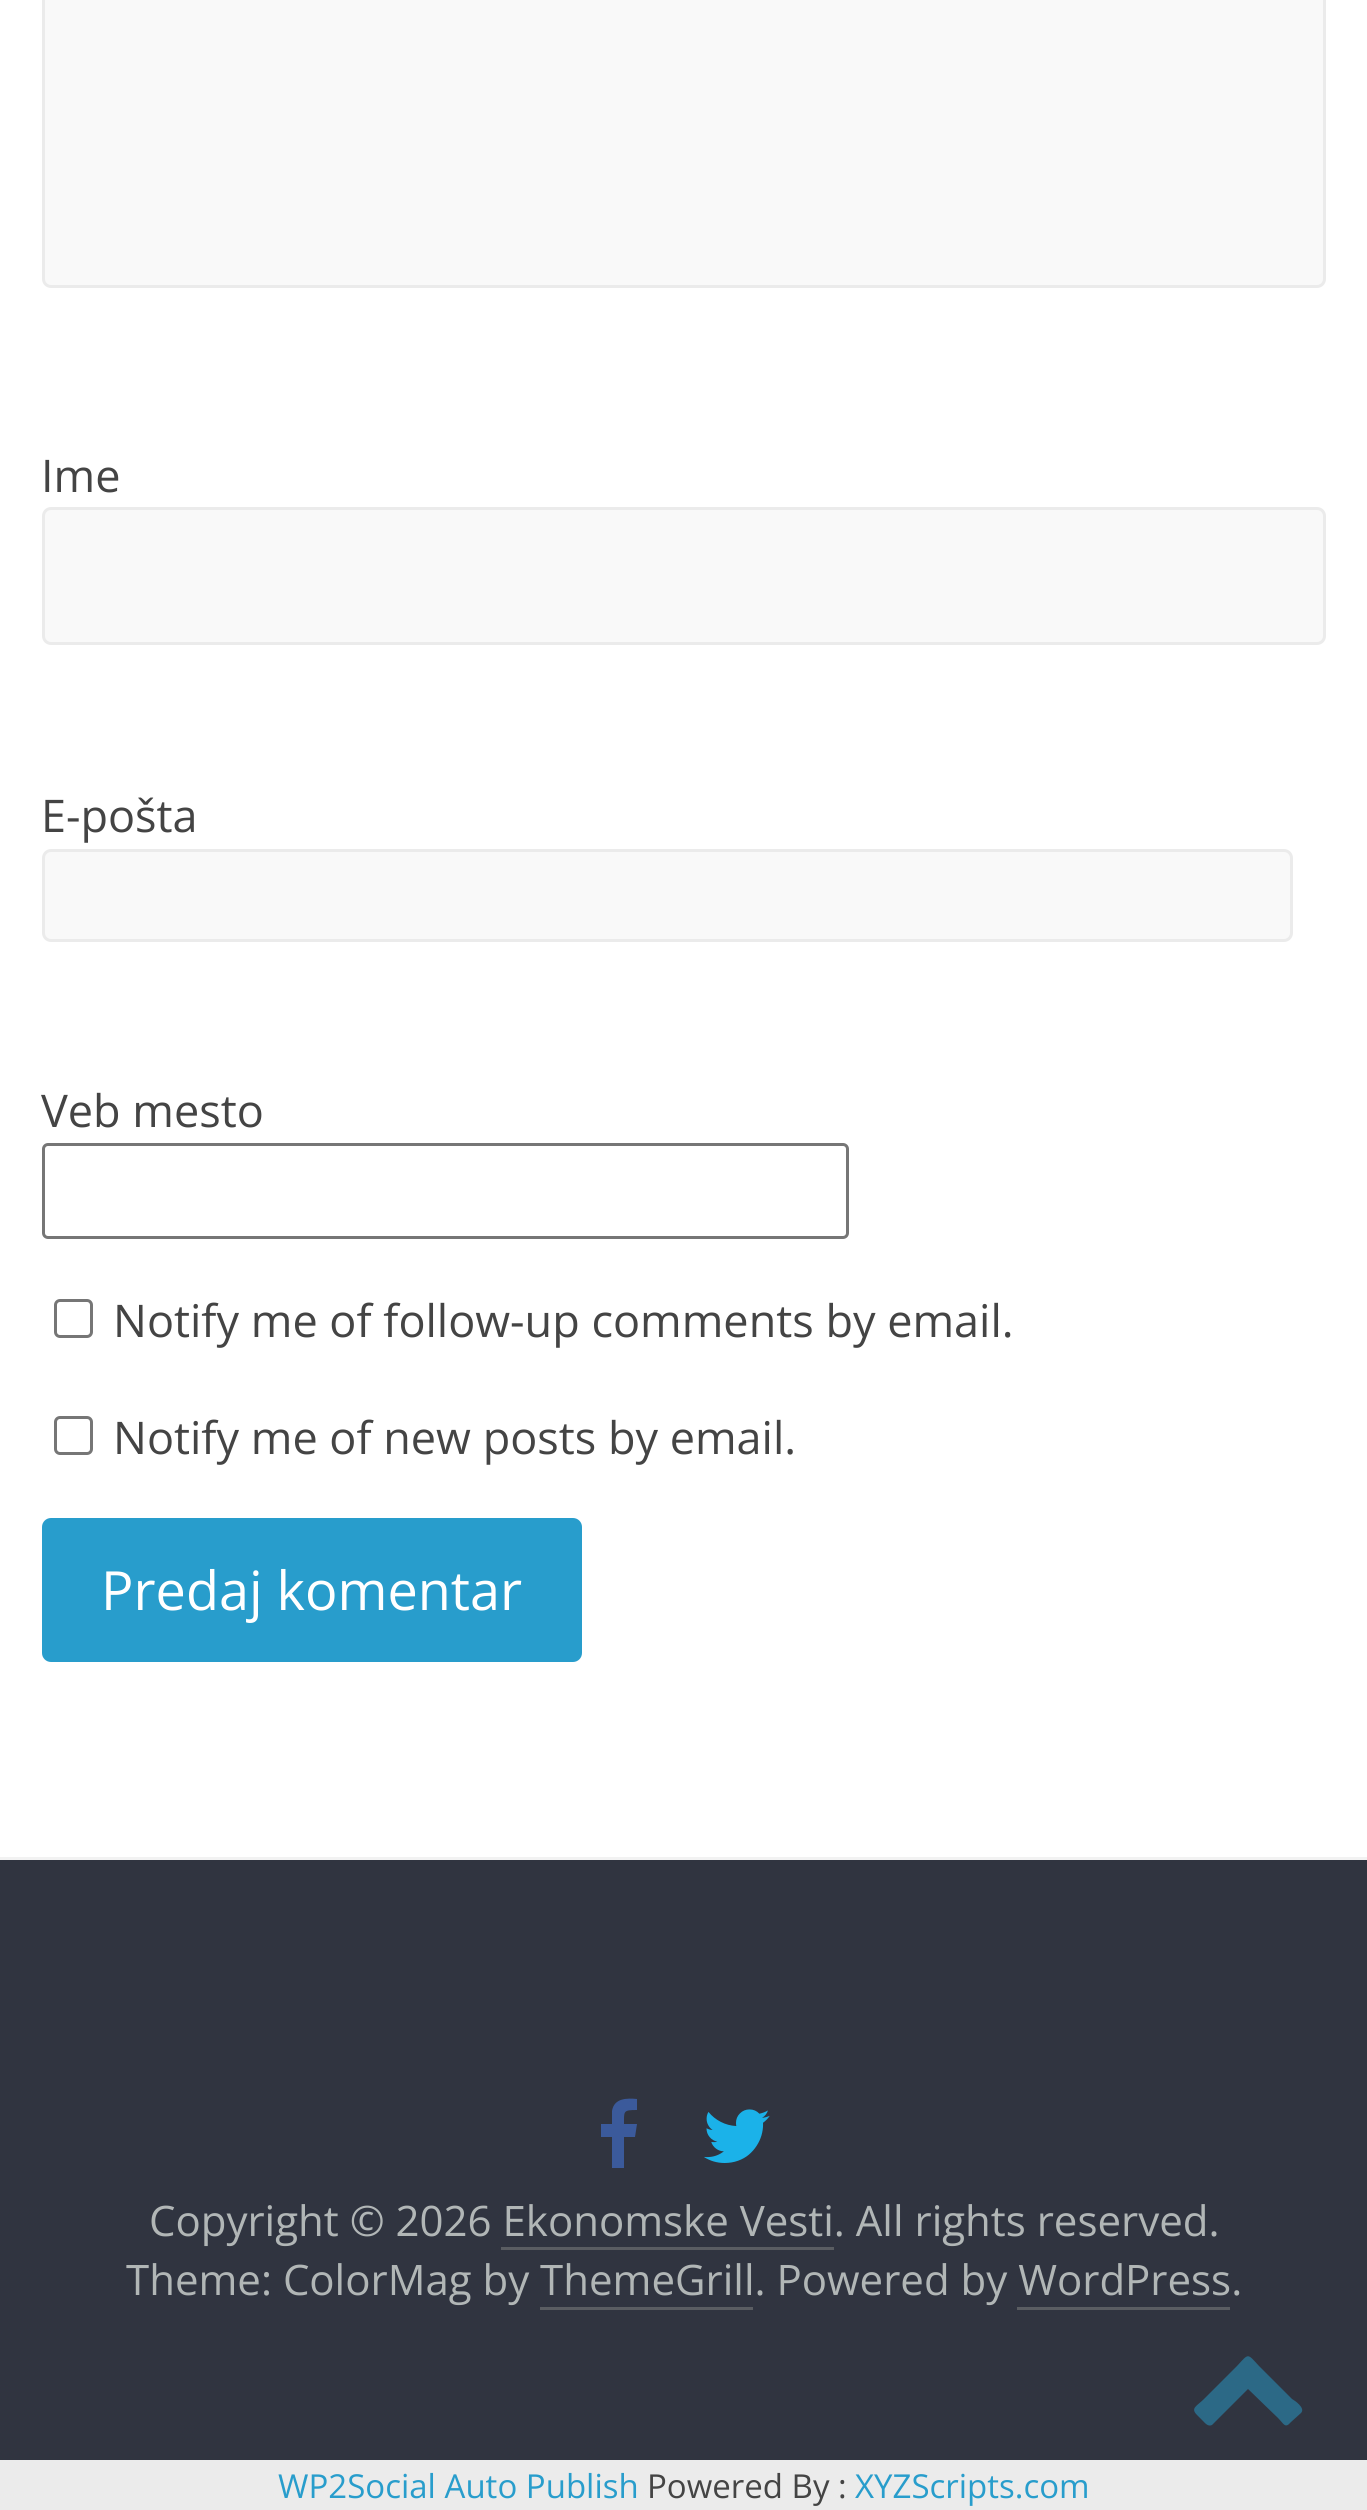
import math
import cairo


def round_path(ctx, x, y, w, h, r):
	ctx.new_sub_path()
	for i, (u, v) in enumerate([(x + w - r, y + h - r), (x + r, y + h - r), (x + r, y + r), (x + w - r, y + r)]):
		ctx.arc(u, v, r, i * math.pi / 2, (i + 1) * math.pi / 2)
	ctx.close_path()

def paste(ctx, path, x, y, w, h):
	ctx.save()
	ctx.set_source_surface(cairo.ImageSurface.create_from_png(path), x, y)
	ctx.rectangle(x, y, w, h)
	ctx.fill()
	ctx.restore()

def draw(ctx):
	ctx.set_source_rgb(0.918, 0.918, 0.918)
	ctx.paint()
	ctx.set_source_rgb(1, 1, 1)
	ctx.rectangle(0, 0, 1367, 1857)
	ctx.fill()
	ctx.set_source_rgb(0.973, 0.973, 0.973)
	round_path(ctx, 43.5, -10.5, 1281, 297, 7.5)
	ctx.fill_preserve()
	ctx.set_source_rgb(0.918, 0.918, 0.918)
	ctx.set_line_width(3)
	ctx.stroke()
	ctx.select_font_face('Open Sans')
	ctx.set_font_size(45)
	ctx.set_source_rgb(0.267, 0.267, 0.267)
	ctx.move_to(41, 492)
	ctx.show_text('Ime')
	ctx.set_source_rgb(0.973, 0.973, 0.973)
	round_path(ctx, 43.5, 508.5, 1281, 135, 7.5)
	ctx.fill_preserve()
	ctx.set_source_rgb(0.918, 0.918, 0.918)
	ctx.stroke()
	ctx.set_source_rgb(0.267, 0.267, 0.267)
	ctx.move_to(41, 832)
	ctx.show_text('E-pošta')
	ctx.set_source_rgb(0.973, 0.973, 0.973)
	round_path(ctx, 43.5, 850.5, 1248, 90, 7.5)
	ctx.fill_preserve()
	ctx.set_source_rgb(0.918, 0.918, 0.918)
	ctx.stroke()
	ctx.set_source_rgb(0.267, 0.267, 0.267)
	ctx.move_to(41, 1127)
	ctx.show_text('Veb mesto')
	round_path(ctx, 43.5, 1144.5, 804, 93, 4.5)
	ctx.set_source_rgb(0.463, 0.463, 0.463)
	ctx.stroke()
	round_path(ctx, 55.5, 1300.5, 36, 36, 4.5)
	ctx.stroke()
	ctx.set_source_rgb(0.267, 0.267, 0.267)
	ctx.move_to(113, 1337)
	ctx.show_text('Notify me of follow-up comments by email.')
	round_path(ctx, 55.5, 1417.5, 36, 36, 4.5)
	ctx.set_source_rgb(0.463, 0.463, 0.463)
	ctx.stroke()
	ctx.set_source_rgb(0.267, 0.267, 0.267)
	ctx.move_to(113, 1454)
	ctx.show_text('Notify me of new posts by email.')
	ctx.set_source_rgb(0.157, 0.616, 0.8)
	round_path(ctx, 42, 1518, 540, 144, 9)
	ctx.fill()
	ctx.set_font_size(54)
	ctx.set_source_rgb(1, 1, 1)
	ctx.move_to(101, 1610)
	ctx.show_text('Predaj komentar')
	ctx.set_source_rgb(0.188, 0.204, 0.251)
	ctx.rectangle(0, 1860, 1367, 600)
	ctx.fill()
	ctx.set_source_rgb(0.949, 0.949, 0.949)
	ctx.rectangle(0, 1857, 1367, 3)
	ctx.fill()
	ctx.set_source_rgb(0.231, 0.353, 0.608)
	ctx.new_path()
	ctx.move_to(637, 2099)
	ctx.line_to(637, 2110)
	ctx.curve_to(623, 2110, 624, 2111, 624, 2124)
	ctx.line_to(637, 2124)
	ctx.line_to(635, 2137)
	ctx.line_to(624, 2137)
	ctx.line_to(624, 2168)
	ctx.line_to(612, 2168)
	ctx.line_to(612, 2137)
	ctx.line_to(601, 2137)
	ctx.line_to(601, 2124)
	ctx.line_to(612, 2124)
	ctx.line_to(612, 2111)
	ctx.curve_to(614, 2098, 627, 2098, 637, 2099)
	ctx.close_path()
	ctx.fill()
	paste(ctx, 'media/1.png', 704, 2109, 66, 54)
	ctx.set_font_size(42)
	ctx.set_source_rgb(0.694, 0.714, 0.714)
	ctx.move_to(149, 2236)
	ctx.show_text('Copyright © 2026 Ekonomske Vesti. All rights reserved.')
	ctx.set_source_rgb(0.353, 0.365, 0.384)
	ctx.rectangle(501, 2247, 333, 3)
	ctx.fill()
	ctx.set_source_rgb(0.694, 0.714, 0.714)
	ctx.move_to(126, 2295)
	ctx.show_text('Theme: ColorMag by ThemeGrill. Powered by WordPress.')
	ctx.set_source_rgb(0.353, 0.365, 0.384)
	ctx.rectangle(540, 2307, 213, 3)
	ctx.fill()
	ctx.rectangle(1017, 2307, 213, 3)
	ctx.fill()
	ctx.set_source_rgb(0.173, 0.412, 0.525)
	ctx.new_path()
	ctx.move_to(1301, 2413)
	ctx.line_to(1291, 2422)
	ctx.curve_to(1285, 2429, 1284, 2424, 1278, 2418)
	ctx.line_to(1248, 2389)
	ctx.line_to(1212, 2425)
	ctx.curve_to(1208, 2427, 1205, 2423, 1203, 2421)
	ctx.line_to(1197, 2415)
	ctx.curve_to(1190, 2408, 1197, 2406, 1204, 2399)
	ctx.line_to(1237, 2366)
	ctx.curve_to(1249, 2353, 1247, 2353, 1259, 2366)
	ctx.line_to(1292, 2399)
	ctx.curve_to(1294, 2400, 1306, 2408, 1301, 2413)
	ctx.close_path()
	ctx.fill()
	ctx.set_font_size(33)
	ctx.set_source_rgb(0.157, 0.616, 0.8)
	ctx.move_to(278, 2498)
	ctx.show_text('WP2Social Auto Publish')
	ctx.set_source_rgb(0.267, 0.267, 0.267)
	ctx.move_to(647, 2498)
	ctx.show_text('Powered By :')
	ctx.set_source_rgb(0.157, 0.616, 0.8)
	ctx.move_to(855, 2498)
	ctx.show_text('XYZScripts.com')


surface = cairo.ImageSurface(cairo.FORMAT_RGB24, 1367, 2510)
ctx = cairo.Context(surface)
options = cairo.FontOptions()
options.set_hint_metrics(cairo.HINT_METRICS_OFF)
options.set_hint_style(cairo.HINT_STYLE_NONE)
ctx.set_font_options(options)
ctx.set_miter_limit(4)
draw(ctx)
surface.write_to_png('image.png')
